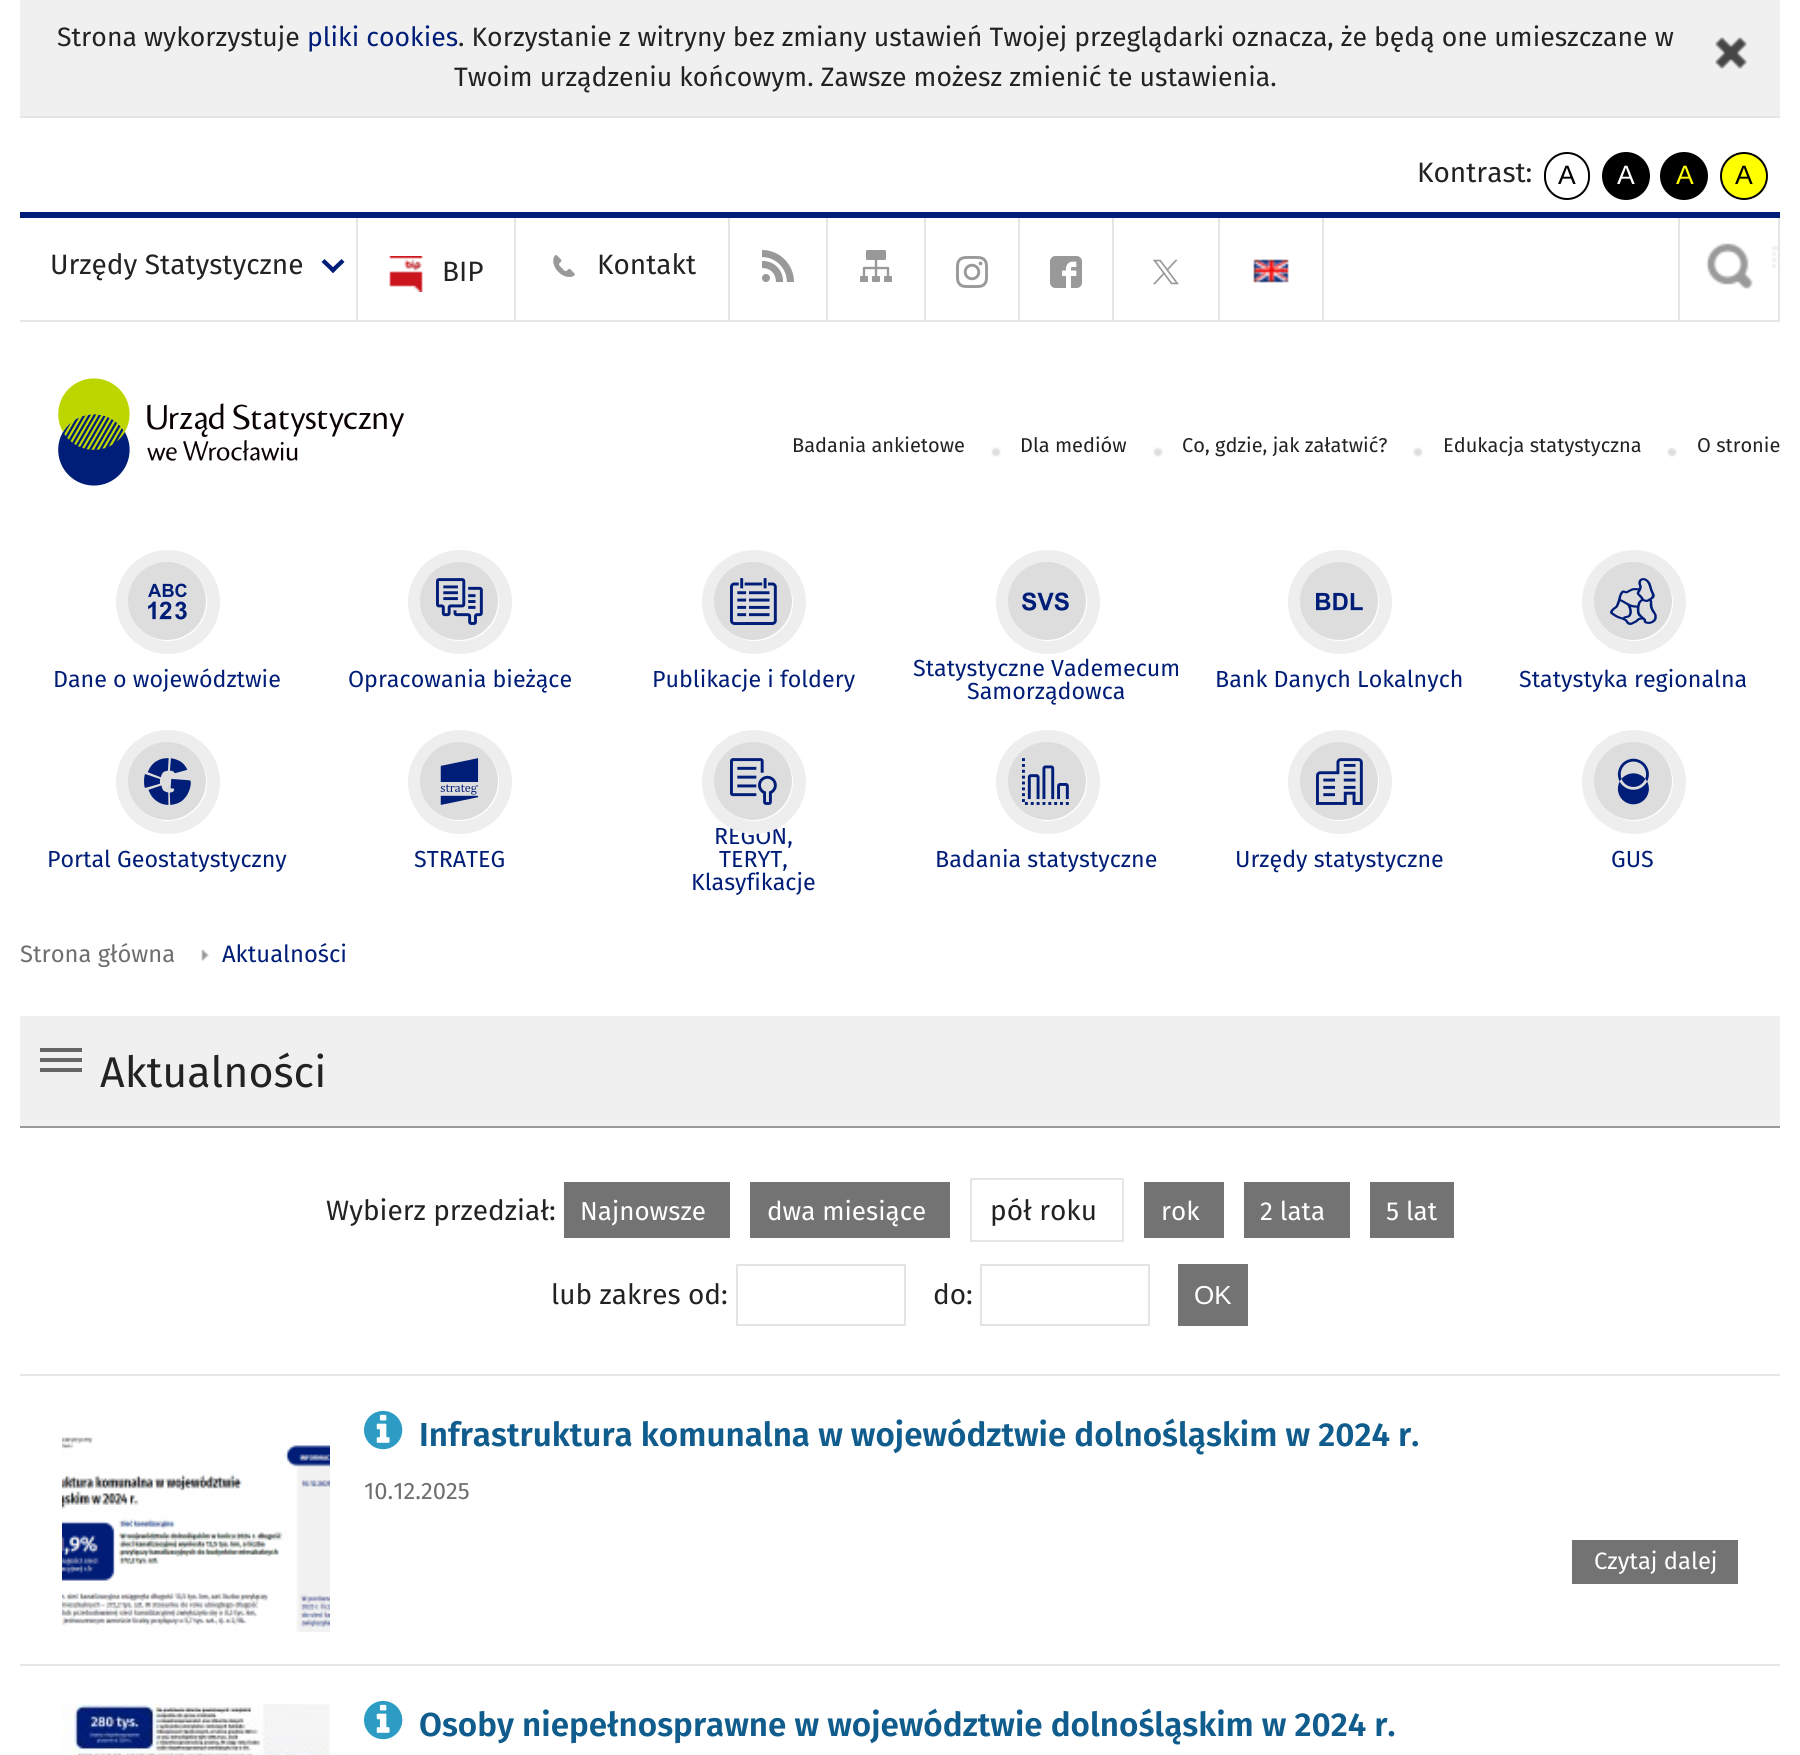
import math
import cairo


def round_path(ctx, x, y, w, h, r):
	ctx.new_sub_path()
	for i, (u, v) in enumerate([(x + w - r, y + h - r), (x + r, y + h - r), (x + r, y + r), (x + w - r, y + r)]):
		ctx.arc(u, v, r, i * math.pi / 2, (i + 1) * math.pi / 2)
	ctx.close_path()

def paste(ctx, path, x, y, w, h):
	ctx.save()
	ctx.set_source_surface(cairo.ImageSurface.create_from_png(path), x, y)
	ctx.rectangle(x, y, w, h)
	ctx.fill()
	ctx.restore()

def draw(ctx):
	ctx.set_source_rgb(1, 1, 1)
	ctx.paint()
	ctx.set_source_rgb(0.941, 0.941, 0.941)
	ctx.rectangle(20, 0, 1760, 116)
	ctx.fill()
	ctx.set_source_rgb(0.898, 0.898, 0.898)
	ctx.rectangle(20, 116, 1760, 2)
	ctx.fill()
	ctx.select_font_face('Fira Sans')
	ctx.set_font_size(26.6)
	ctx.set_source_rgb(0.133, 0.133, 0.133)
	ctx.move_to(57, 46)
	ctx.show_text('Strona wykorzystuje')
	ctx.set_source_rgb(0, 0.114, 0.467)
	ctx.move_to(307, 46)
	ctx.show_text('pliki cookies')
	ctx.set_source_rgb(0.133, 0.133, 0.133)
	ctx.move_to(458, 46)
	ctx.show_text('. Korzystanie z witryny bez zmiany ustawień Twojej przeglądarki oznacza, że będą one umieszczane w')
	paste(ctx, 'media/1.png', 1715, 37, 32, 32)
	ctx.move_to(454, 86)
	ctx.show_text('Twoim urządzeniu końcowym. Zawsze możesz zmienić te ustawienia.')
	ctx.set_font_size(28)
	ctx.move_to(1417, 182)
	ctx.show_text('Kontrast:')
	round_path(ctx, 1545, 153, 44, 46, 22)
	ctx.set_source_rgb(0, 0, 0)
	ctx.stroke()
	ctx.select_font_face('Liberation Sans')
	ctx.set_font_size(26.6)
	ctx.move_to(1558, 184)
	ctx.show_text('A')
	ctx.new_path()
	ctx.arc(1626, 176, 23, 0, 2 * math.pi)
	ctx.fill_preserve()
	ctx.stroke()
	ctx.set_source_rgb(1, 1, 1)
	ctx.move_to(1617, 184)
	ctx.show_text('A')
	ctx.set_source_rgb(0, 0, 0)
	ctx.new_path()
	ctx.arc(1684, 176, 23, 0, 2 * math.pi)
	ctx.fill_preserve()
	ctx.stroke()
	ctx.set_source_rgb(1, 1, 0)
	ctx.move_to(1676, 184)
	ctx.show_text('A')
	ctx.new_path()
	ctx.arc(1744, 176, 23, 0, 2 * math.pi)
	ctx.fill_preserve()
	ctx.set_source_rgb(0, 0, 0)
	ctx.stroke()
	ctx.move_to(1735, 184)
	ctx.show_text('A')
	ctx.set_source_rgb(0, 0.114, 0.467)
	ctx.rectangle(20, 212, 1760, 6)
	ctx.fill()
	ctx.set_source_rgb(0.898, 0.898, 0.898)
	ctx.rectangle(20, 320, 1760, 2)
	ctx.rectangle(356, 218, 2, 102)
	ctx.fill()
	ctx.select_font_face('Fira Sans')
	ctx.set_font_size(28)
	ctx.set_source_rgb(0.133, 0.133, 0.133)
	ctx.move_to(50, 274)
	ctx.show_text('Urzędy Statystyczne')
	ctx.set_source_rgb(0, 0.114, 0.467)
	ctx.new_path()
	ctx.move_to(341.5, 259)
	ctx.line_to(344.5, 262)
	ctx.line_to(333, 273)
	ctx.line_to(330, 270)
	ctx.close_path()
	ctx.fill()
	ctx.new_path()
	ctx.move_to(324.5, 259)
	ctx.line_to(336, 270)
	ctx.line_to(333, 273)
	ctx.line_to(321.5, 262)
	ctx.close_path()
	ctx.fill()
	ctx.set_source_rgb(0.898, 0.898, 0.898)
	ctx.rectangle(514, 218, 2, 102)
	ctx.fill()
	paste(ctx, 'media/2.png', 389, 256, 34, 36)
	ctx.set_source_rgb(0.133, 0.133, 0.133)
	ctx.move_to(442, 281)
	ctx.show_text('BIP')
	ctx.set_source_rgb(0.898, 0.898, 0.898)
	ctx.rectangle(728, 218, 2, 102)
	ctx.fill()
	paste(ctx, 'media/3.png', 553, 255, 22, 22)
	ctx.set_source_rgb(0.133, 0.133, 0.133)
	ctx.move_to(597, 274)
	ctx.show_text('Kontakt')
	ctx.set_source_rgb(0.898, 0.898, 0.898)
	ctx.rectangle(826, 218, 2, 102)
	ctx.fill()
	paste(ctx, 'media/4.png', 762, 250, 32, 32)
	ctx.rectangle(924, 218, 2, 102)
	ctx.fill()
	paste(ctx, 'media/5.png', 860, 250, 32, 32)
	ctx.rectangle(1018, 218, 2, 102)
	ctx.fill()
	paste(ctx, 'media/6.png', 956, 256, 32, 32)
	ctx.rectangle(1112, 218, 2, 102)
	ctx.fill()
	paste(ctx, 'media/7.png', 1050, 256, 32, 32)
	ctx.rectangle(1218, 218, 2, 102)
	ctx.fill()
	paste(ctx, 'media/8.png', 1153, 259, 26, 26)
	ctx.rectangle(1322, 218, 2, 102)
	ctx.fill()
	paste(ctx, 'media/9.png', 1253, 259, 36, 24)
	paste(ctx, 'media/10.png', 1706, 243, 72, 46)
	ctx.rectangle(1778, 218, 2, 102)
	ctx.fill()
	ctx.rectangle(1678, 218, 2, 102)
	ctx.fill()
	paste(ctx, 'media/11.png', 58, 378, 346, 108)
	ctx.set_font_size(20)
	ctx.set_source_rgb(0.133, 0.133, 0.133)
	ctx.move_to(792, 452)
	ctx.show_text('Badania ankietowe')
	paste(ctx, 'media/12.png', 991, 447, 10, 10)
	ctx.move_to(1020, 452)
	ctx.show_text('Dla mediów')
	paste(ctx, 'media/12.png', 1153, 447, 10, 10)
	ctx.move_to(1182, 452)
	ctx.show_text('Co, gdzie, jak załatwić?')
	paste(ctx, 'media/12.png', 1413, 447, 10, 10)
	ctx.move_to(1443, 452)
	ctx.show_text('Edukacja statystyczna')
	paste(ctx, 'media/12.png', 1667, 447, 10, 10)
	ctx.move_to(1697, 452)
	ctx.show_text('O stronie')
	ctx.new_path()
	ctx.arc(168, 602, 45.5, 0, 2 * math.pi)
	ctx.set_source_rgb(0.933, 0.933, 0.933)
	ctx.set_line_width(13)
	ctx.stroke()
	ctx.set_source_rgb(0.867, 0.867, 0.867)
	ctx.arc(167, 601, 39, 0, 2 * math.pi)
	ctx.fill()
	paste(ctx, 'media/13.png', 148, 583, 39, 37)
	ctx.set_font_size(23.25)
	ctx.set_source_rgb(0, 0.114, 0.467)
	ctx.move_to(53, 687)
	ctx.show_text('Dane o województwie')
	ctx.new_path()
	ctx.arc(460, 602, 45.5, 0, 2 * math.pi)
	ctx.set_source_rgb(0.933, 0.933, 0.933)
	ctx.stroke()
	ctx.set_source_rgb(0.867, 0.867, 0.867)
	ctx.arc(459, 601, 39, 0, 2 * math.pi)
	ctx.fill()
	paste(ctx, 'media/14.png', 436, 578, 47, 47)
	ctx.set_source_rgb(0, 0.114, 0.467)
	ctx.move_to(348, 687)
	ctx.show_text('Opracowania bieżące')
	ctx.new_path()
	ctx.arc(754, 602, 45.5, 0, 2 * math.pi)
	ctx.set_source_rgb(0.933, 0.933, 0.933)
	ctx.stroke()
	ctx.set_source_rgb(0.867, 0.867, 0.867)
	ctx.arc(753, 601, 39, 0, 2 * math.pi)
	ctx.fill()
	paste(ctx, 'media/15.png', 730, 578, 47, 47)
	ctx.set_source_rgb(0, 0.114, 0.467)
	ctx.move_to(652, 687)
	ctx.show_text('Publikacje i foldery')
	ctx.new_path()
	ctx.arc(1048, 602, 45.5, 0, 2 * math.pi)
	ctx.set_source_rgb(0.933, 0.933, 0.933)
	ctx.stroke()
	ctx.set_source_rgb(0.867, 0.867, 0.867)
	ctx.arc(1047, 601, 39, 0, 2 * math.pi)
	ctx.fill()
	paste(ctx, 'media/16.png', 1022, 592, 47, 19)
	ctx.set_source_rgb(0, 0.114, 0.467)
	ctx.move_to(913, 676)
	ctx.show_text('Statystyczne Vademecum')
	ctx.move_to(967, 699)
	ctx.show_text('Samorządowca')
	ctx.new_path()
	ctx.arc(1340, 602, 45.5, 0, 2 * math.pi)
	ctx.set_source_rgb(0.933, 0.933, 0.933)
	ctx.stroke()
	ctx.set_source_rgb(0.867, 0.867, 0.867)
	ctx.arc(1339, 601, 39, 0, 2 * math.pi)
	ctx.fill()
	paste(ctx, 'media/17.png', 1316, 592, 47, 19)
	ctx.set_source_rgb(0, 0.114, 0.467)
	ctx.move_to(1215, 687)
	ctx.show_text('Bank Danych Lokalnych')
	ctx.new_path()
	ctx.arc(1634, 602, 45.5, 0, 2 * math.pi)
	ctx.set_source_rgb(0.933, 0.933, 0.933)
	ctx.stroke()
	ctx.set_source_rgb(0.867, 0.867, 0.867)
	ctx.arc(1633, 601, 39, 0, 2 * math.pi)
	ctx.fill()
	paste(ctx, 'media/18.png', 1610, 578, 47, 47)
	ctx.set_source_rgb(0, 0.114, 0.467)
	ctx.move_to(1519, 687)
	ctx.show_text('Statystyka regionalna')
	ctx.new_path()
	ctx.arc(168, 782, 45.5, 0, 2 * math.pi)
	ctx.set_source_rgb(0.933, 0.933, 0.933)
	ctx.stroke()
	ctx.set_source_rgb(0.867, 0.867, 0.867)
	ctx.arc(167, 781, 39, 0, 2 * math.pi)
	ctx.fill()
	paste(ctx, 'media/19.png', 144, 758, 47, 47)
	ctx.set_source_rgb(0, 0.114, 0.467)
	ctx.move_to(47, 867)
	ctx.show_text('Portal Geostatystyczny')
	ctx.new_path()
	ctx.arc(460, 782, 45.5, 0, 2 * math.pi)
	ctx.set_source_rgb(0.933, 0.933, 0.933)
	ctx.stroke()
	ctx.set_source_rgb(0.867, 0.867, 0.867)
	ctx.arc(459, 781, 39, 0, 2 * math.pi)
	ctx.fill()
	paste(ctx, 'media/20.png', 440, 758, 39, 47)
	ctx.set_source_rgb(0, 0.114, 0.467)
	ctx.move_to(414, 867)
	ctx.show_text('STRATEG')
	ctx.move_to(714, 844)
	ctx.show_text('REGON,')
	ctx.new_path()
	ctx.arc(754, 782, 45.5, 0, 2 * math.pi)
	ctx.set_source_rgb(0.933, 0.933, 0.933)
	ctx.stroke()
	ctx.set_source_rgb(0.867, 0.867, 0.867)
	ctx.arc(753, 781, 39, 0, 2 * math.pi)
	ctx.fill()
	paste(ctx, 'media/21.png', 730, 758, 47, 47)
	ctx.set_source_rgb(0, 0.114, 0.467)
	ctx.move_to(719, 867)
	ctx.show_text('TERYT,')
	ctx.move_to(691, 890)
	ctx.show_text('Klasyfikacje')
	ctx.new_path()
	ctx.arc(1048, 782, 45.5, 0, 2 * math.pi)
	ctx.set_source_rgb(0.933, 0.933, 0.933)
	ctx.stroke()
	ctx.set_source_rgb(0.867, 0.867, 0.867)
	ctx.arc(1047, 781, 39, 0, 2 * math.pi)
	ctx.fill()
	paste(ctx, 'media/22.png', 1022, 758, 47, 47)
	ctx.set_source_rgb(0, 0.114, 0.467)
	ctx.move_to(935, 867)
	ctx.show_text('Badania statystyczne')
	ctx.new_path()
	ctx.arc(1340, 782, 45.5, 0, 2 * math.pi)
	ctx.set_source_rgb(0.933, 0.933, 0.933)
	ctx.stroke()
	ctx.set_source_rgb(0.867, 0.867, 0.867)
	ctx.arc(1339, 781, 39, 0, 2 * math.pi)
	ctx.fill()
	paste(ctx, 'media/23.png', 1316, 758, 47, 47)
	ctx.set_source_rgb(0, 0.114, 0.467)
	ctx.move_to(1235, 867)
	ctx.show_text('Urzędy statystyczne')
	ctx.new_path()
	ctx.arc(1634, 782, 45.5, 0, 2 * math.pi)
	ctx.set_source_rgb(0.933, 0.933, 0.933)
	ctx.stroke()
	ctx.set_source_rgb(0.867, 0.867, 0.867)
	ctx.arc(1633, 781, 39, 0, 2 * math.pi)
	ctx.fill()
	paste(ctx, 'media/24.png', 1617, 758, 32, 47)
	ctx.set_source_rgb(0, 0.114, 0.467)
	ctx.move_to(1611, 867)
	ctx.show_text('GUS')
	ctx.set_font_size(23.75)
	ctx.set_source_rgb(0.431, 0.431, 0.431)
	ctx.move_to(20, 962)
	ctx.show_text('Strona główna')
	paste(ctx, 'media/25.png', 201, 949, 8, 12)
	ctx.set_source_rgb(0, 0.114, 0.467)
	ctx.move_to(222, 962)
	ctx.show_text('Aktualności')
	ctx.set_source_rgb(0.941, 0.941, 0.941)
	ctx.rectangle(20, 1016, 1760, 110)
	ctx.fill()
	ctx.set_source_rgb(0.604, 0.604, 0.604)
	ctx.rectangle(20, 1126, 1760, 2)
	ctx.fill()
	ctx.set_source_rgb(0.4, 0.4, 0.4)
	ctx.rectangle(40, 1068, 42, 4)
	ctx.rectangle(40, 1058, 42, 4)
	ctx.rectangle(40, 1048, 42, 4)
	ctx.fill()
	ctx.set_font_size(43)
	ctx.set_source_rgb(0.133, 0.133, 0.133)
	ctx.move_to(100, 1087)
	ctx.show_text('Aktualności')
	ctx.set_source_rgb(0.898, 0.898, 0.898)
	ctx.rectangle(20, 1374, 1760, 2)
	ctx.fill()
	ctx.set_font_size(28)
	ctx.set_source_rgb(0.133, 0.133, 0.133)
	ctx.move_to(326, 1220)
	ctx.show_text('Wybierz przedział:')
	ctx.set_source_rgb(0.451, 0.451, 0.451)
	ctx.rectangle(564, 1182, 166, 56)
	ctx.fill()
	ctx.set_font_size(26)
	ctx.set_source_rgb(1, 1, 1)
	ctx.move_to(580, 1220)
	ctx.show_text('Najnowsze')
	ctx.set_source_rgb(0.451, 0.451, 0.451)
	ctx.rectangle(750, 1182, 200, 56)
	ctx.fill()
	ctx.set_source_rgb(1, 1, 1)
	ctx.move_to(767, 1220)
	ctx.show_text('dwa miesiące')
	ctx.rectangle(971, 1179, 152, 62)
	ctx.set_source_rgb(0.898, 0.898, 0.898)
	ctx.set_line_width(2)
	ctx.stroke()
	ctx.set_font_size(28)
	ctx.set_source_rgb(0.133, 0.133, 0.133)
	ctx.move_to(990, 1220)
	ctx.show_text('pół roku')
	ctx.set_source_rgb(0.451, 0.451, 0.451)
	ctx.rectangle(1144, 1182, 80, 56)
	ctx.fill()
	ctx.set_font_size(26)
	ctx.set_source_rgb(1, 1, 1)
	ctx.move_to(1161, 1220)
	ctx.show_text('rok')
	ctx.set_source_rgb(0.451, 0.451, 0.451)
	ctx.rectangle(1244, 1182, 106, 56)
	ctx.fill()
	ctx.set_source_rgb(1, 1, 1)
	ctx.move_to(1260, 1220)
	ctx.show_text('2 lata')
	ctx.set_source_rgb(0.451, 0.451, 0.451)
	ctx.rectangle(1370, 1182, 84, 56)
	ctx.fill()
	ctx.set_source_rgb(1, 1, 1)
	ctx.move_to(1386, 1220)
	ctx.show_text('5 lat')
	ctx.set_font_size(28)
	ctx.set_source_rgb(0.133, 0.133, 0.133)
	ctx.move_to(551, 1304)
	ctx.show_text('lub zakres od:')
	ctx.rectangle(737, 1265, 168, 60)
	ctx.set_source_rgb(0.894, 0.894, 0.894)
	ctx.stroke()
	ctx.set_source_rgb(0.133, 0.133, 0.133)
	ctx.move_to(933, 1304)
	ctx.show_text('do:')
	ctx.rectangle(981, 1265, 168, 60)
	ctx.set_source_rgb(0.894, 0.894, 0.894)
	ctx.stroke()
	ctx.set_source_rgb(0.451, 0.451, 0.451)
	ctx.rectangle(1178, 1264, 70, 62)
	ctx.fill()
	ctx.select_font_face('Liberation Sans')
	ctx.set_font_size(26)
	ctx.set_source_rgb(1, 1, 1)
	ctx.move_to(1194, 1304)
	ctx.show_text('OK')
	ctx.set_source_rgb(0.898, 0.898, 0.898)
	ctx.rectangle(20, 1664, 1760, 2)
	ctx.fill()
	paste(ctx, 'media/26.png', 62, 1436, 268, 196)
	paste(ctx, 'media/27.png', 364, 1410, 39, 40)
	ctx.select_font_face('Fira Sans SemiBold')
	ctx.set_font_size(33.2)
	ctx.set_source_rgb(0.059, 0.361, 0.553)
	ctx.move_to(419, 1446)
	ctx.show_text('Infrastruktura komunalna w województwie dolnośląskim w 2024 r.')
	ctx.select_font_face('Fira Sans')
	ctx.set_font_size(23.75)
	ctx.set_source_rgb(0.431, 0.431, 0.431)
	ctx.move_to(364, 1499)
	ctx.show_text('10.12.2025')
	ctx.set_source_rgb(0.451, 0.451, 0.451)
	ctx.rectangle(1572, 1540, 166, 44)
	ctx.fill()
	ctx.set_source_rgb(1, 1, 1)
	ctx.move_to(1594, 1569)
	ctx.show_text('Czytaj dalej')
	paste(ctx, 'media/28.png', 62, 1704, 268, 51)
	paste(ctx, 'media/27.png', 364, 1700, 39, 40)
	ctx.select_font_face('Fira Sans SemiBold')
	ctx.set_font_size(33.2)
	ctx.set_source_rgb(0.059, 0.361, 0.553)
	ctx.move_to(419, 1736)
	ctx.show_text('Osoby niepełnosprawne w województwie dolnośląskim w 2024 r.')


surface = cairo.ImageSurface(cairo.FORMAT_RGB24, 1800, 1755)
ctx = cairo.Context(surface)
options = cairo.FontOptions()
options.set_hint_metrics(cairo.HINT_METRICS_OFF)
options.set_hint_style(cairo.HINT_STYLE_NONE)
ctx.set_font_options(options)
ctx.set_miter_limit(4)
draw(ctx)
surface.write_to_png('image.png')
